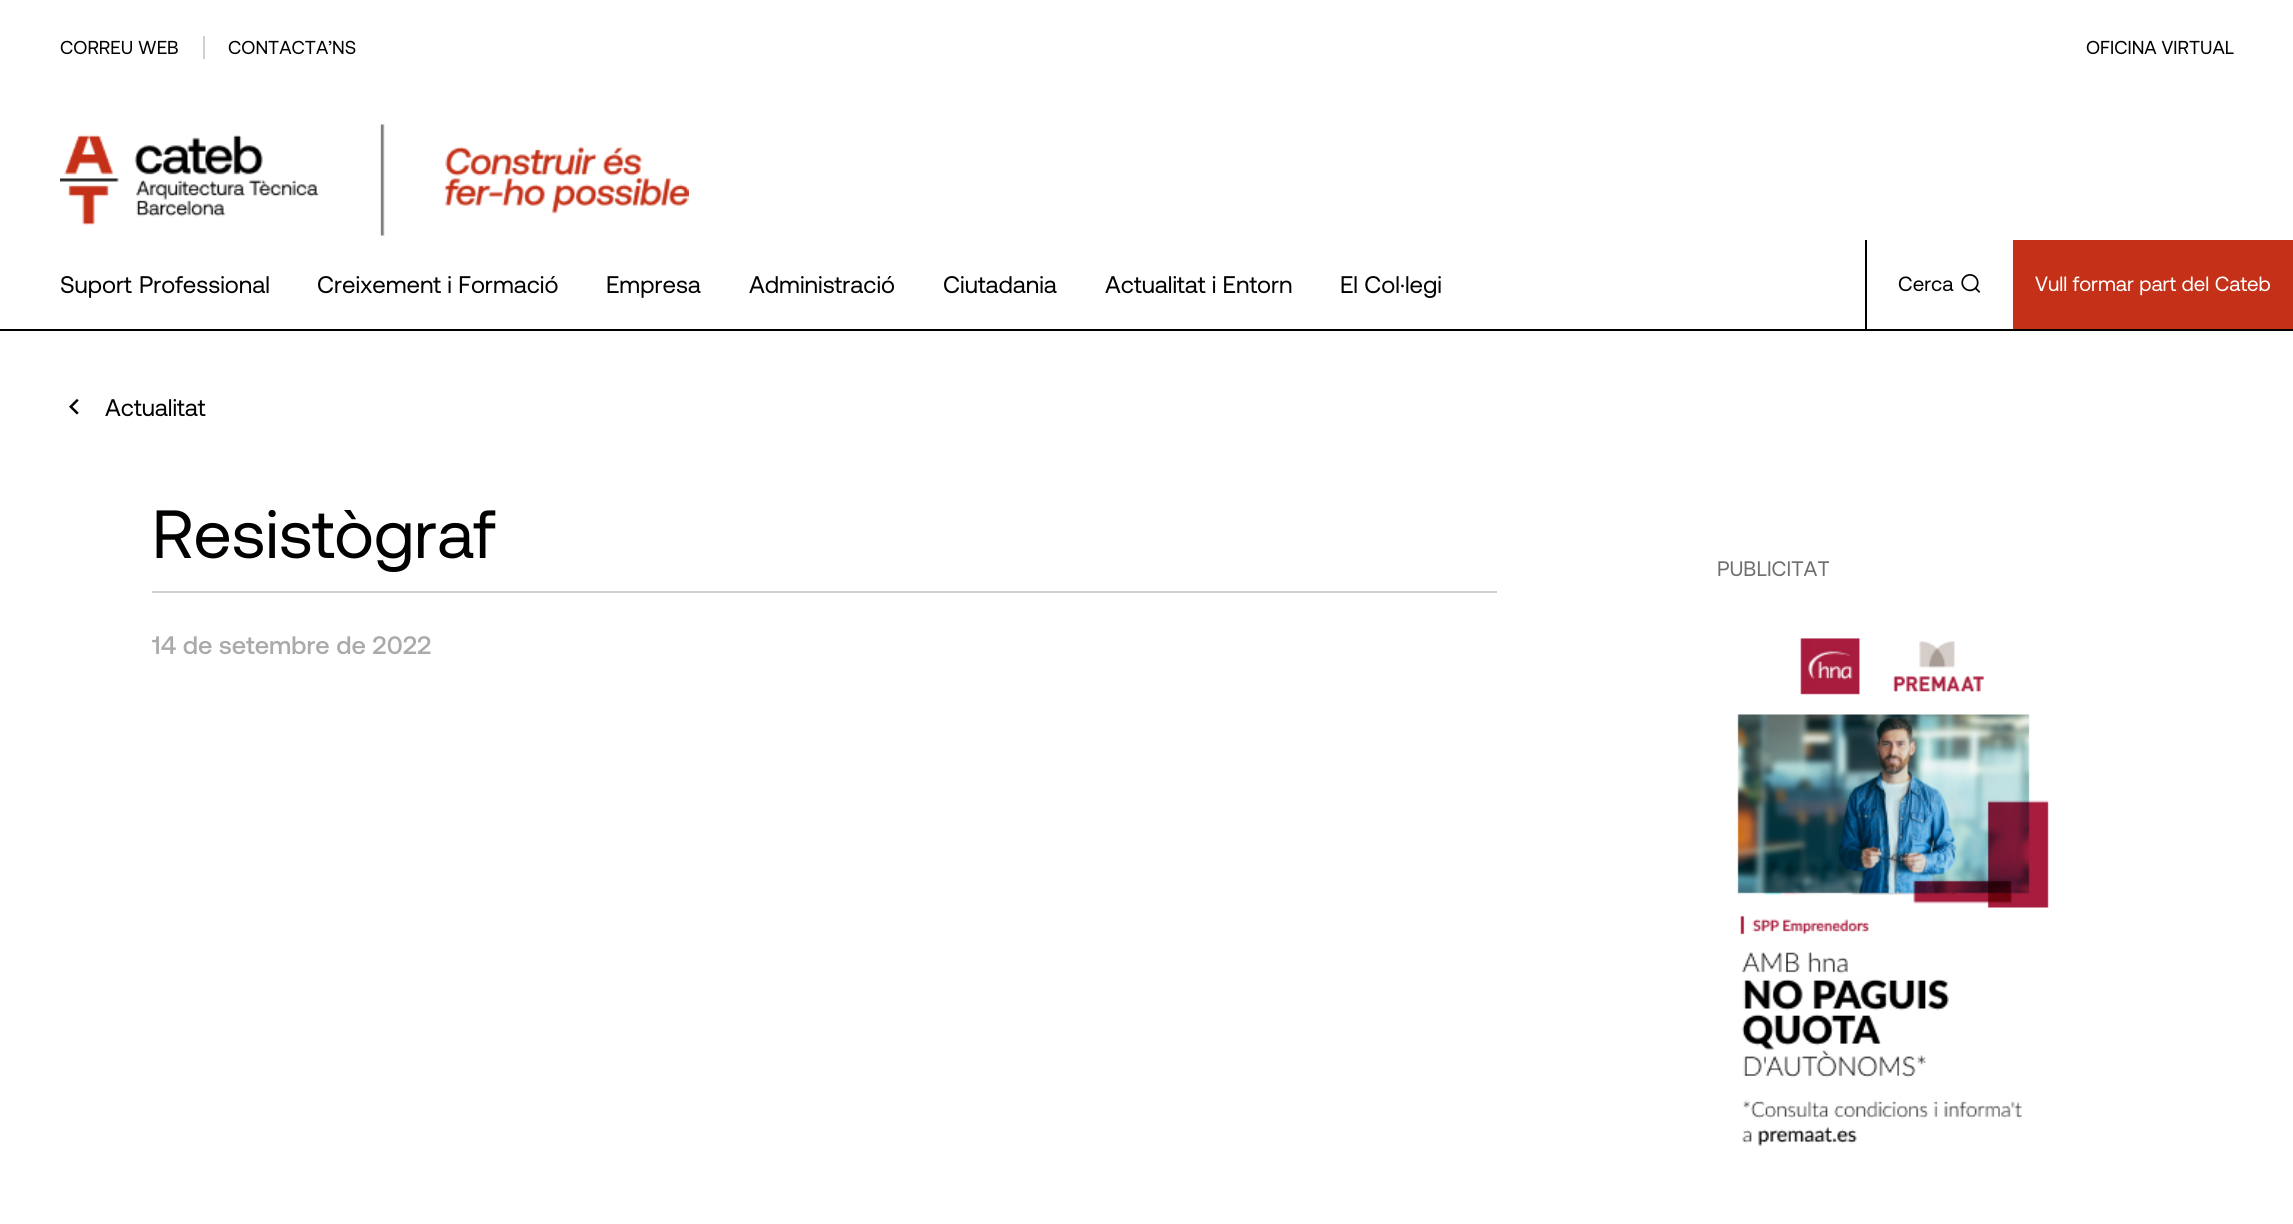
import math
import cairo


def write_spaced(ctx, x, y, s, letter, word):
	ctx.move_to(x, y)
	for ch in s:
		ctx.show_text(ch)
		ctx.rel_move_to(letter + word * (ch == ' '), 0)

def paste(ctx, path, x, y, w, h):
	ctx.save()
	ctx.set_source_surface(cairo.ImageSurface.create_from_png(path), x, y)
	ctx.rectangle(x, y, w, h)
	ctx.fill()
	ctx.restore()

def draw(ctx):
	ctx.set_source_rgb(1, 1, 1)
	ctx.paint()
	ctx.set_source_rgb(0.816, 0.816, 0.816)
	ctx.rectangle(203, 36, 2, 23)
	ctx.fill()
	ctx.select_font_face('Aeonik')
	ctx.set_font_size(18.75)
	ctx.set_source_rgb(0.004, 0.004, 0)
	for x, y, s in [
		(60, 54, 'CORREU WEB'),
		(228, 54, 'CONTACTA’NS'),
		(2086, 54, 'OFICINA VIRTUAL'),
	]:
		ctx.move_to(x, y)
		ctx.show_text(s)
	paste(ctx, 'media/1.png', 60, 124, 629, 112)
	ctx.rectangle(0, 329, 2293, 2)
	ctx.fill()
	ctx.set_font_size(24)
	write_spaced(ctx, 60, 293, 'Suport Professional', 0, 1)
	for x, y, s in [
		(317, 293, 'Creixement i Formació'),
		(606, 293, 'Empresa'),
		(749, 293, 'Administració'),
		(943, 293, 'Ciutadania'),
		(1105, 293, 'Actualitat i Entorn'),
		(1340, 293, 'El Col·legi'),
	]:
		ctx.move_to(x, y)
		ctx.show_text(s)
	ctx.rectangle(1865, 240, 2, 89)
	ctx.fill()
	ctx.set_font_size(20.6)
	ctx.move_to(1898, 291)
	ctx.show_text('Cerca')
	paste(ctx, 'media/2.png', 1961, 274, 20, 19)
	ctx.set_source_rgb(0.769, 0.192, 0.094)
	ctx.rectangle(2013, 240, 280, 89)
	ctx.fill()
	ctx.set_source_rgb(1, 1, 1)
	ctx.move_to(2035, 291)
	ctx.show_text('Vull formar part del Cateb')
	paste(ctx, 'media/3.png', 69, 398, 10, 17)
	ctx.set_font_size(24)
	ctx.set_source_rgb(0.004, 0.004, 0)
	ctx.move_to(105, 416)
	ctx.show_text('Actualitat')
	ctx.set_source_rgb(0.816, 0.816, 0.816)
	ctx.rectangle(152, 591, 1345, 2)
	ctx.fill()
	ctx.set_font_size(68)
	ctx.set_source_rgb(0.004, 0.004, 0)
	ctx.move_to(152, 558)
	ctx.show_text('Resistògraf')
	ctx.select_font_face('Aeonik Medium')
	ctx.set_font_size(25.25)
	ctx.set_source_rgb(0.667, 0.667, 0.667)
	ctx.move_to(152, 654)
	ctx.show_text('14 de setembre de 2022')
	ctx.select_font_face('Aeonik')
	ctx.set_font_size(21)
	ctx.set_source_rgb(0.435, 0.435, 0.435)
	ctx.move_to(1717, 576)
	ctx.show_text('PUBLICITAT')
	paste(ctx, 'media/4.png', 1737, 638, 312, 509)


surface = cairo.ImageSurface(cairo.FORMAT_RGB24, 2293, 1224)
ctx = cairo.Context(surface)
options = cairo.FontOptions()
options.set_hint_metrics(cairo.HINT_METRICS_OFF)
options.set_hint_style(cairo.HINT_STYLE_NONE)
ctx.set_font_options(options)
ctx.set_miter_limit(4)
draw(ctx)
surface.write_to_png('image.png')
